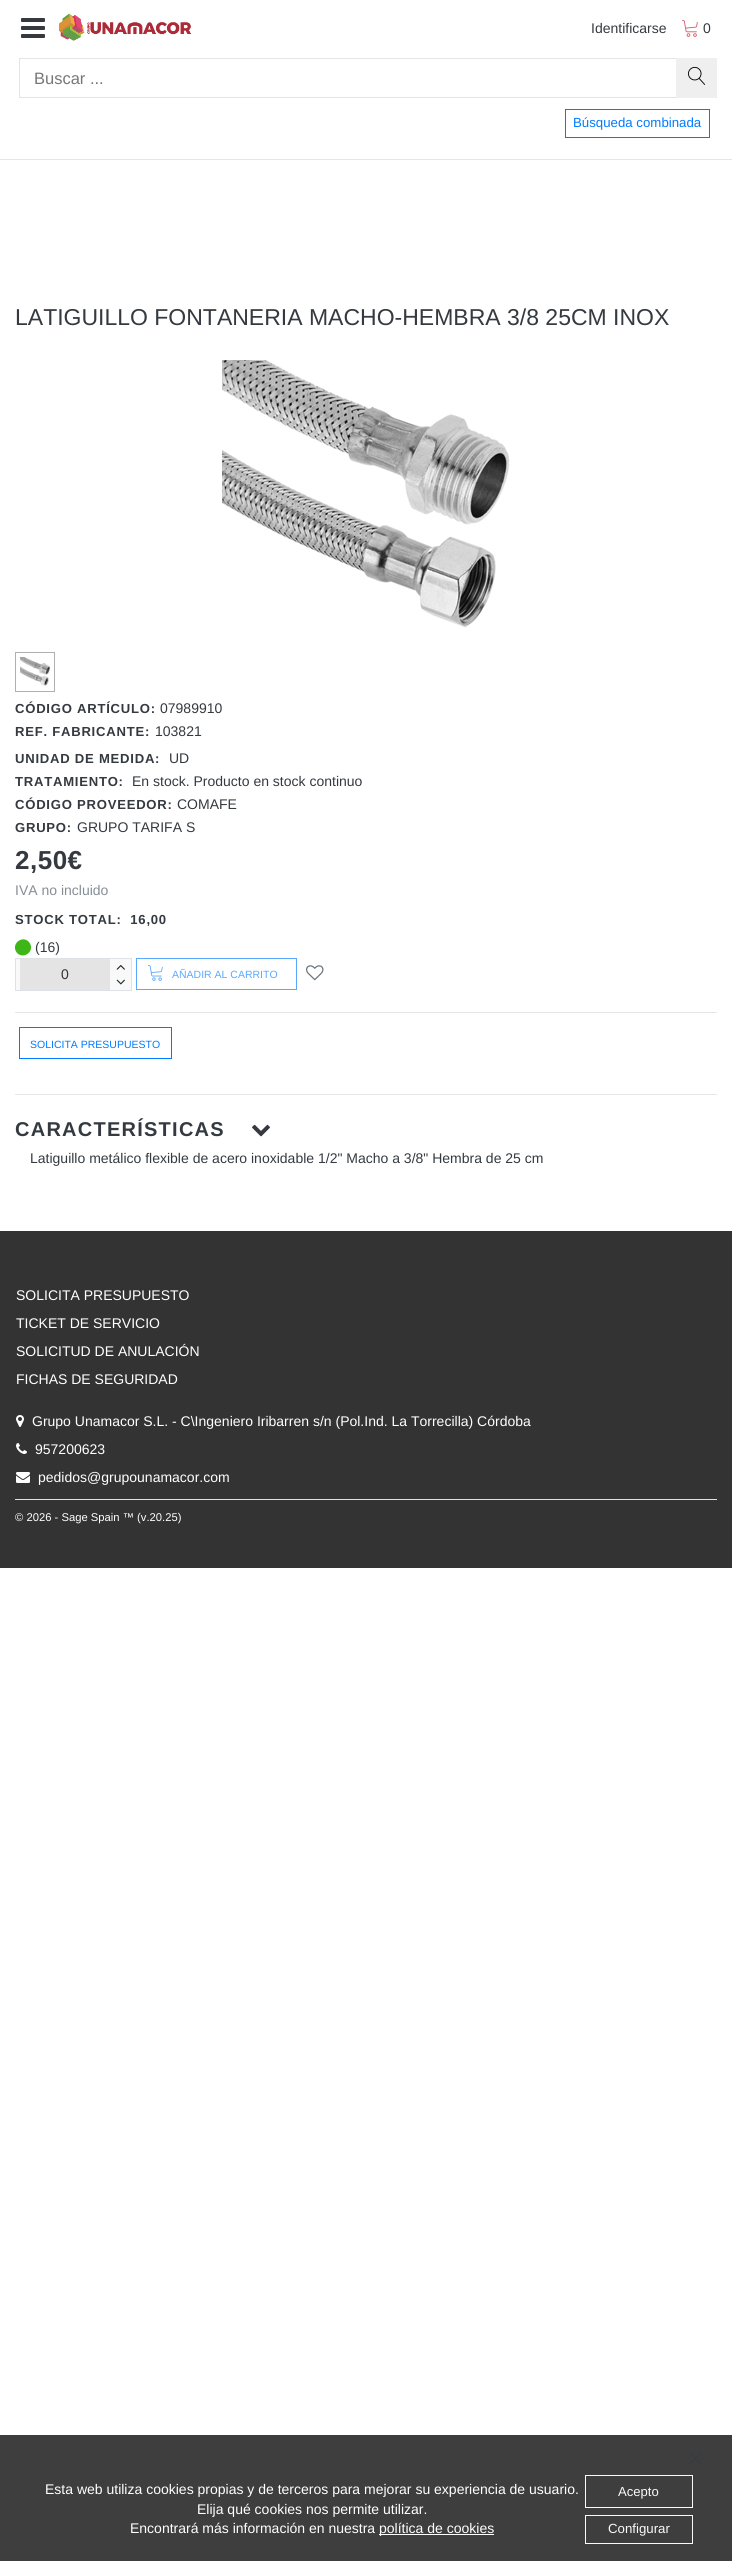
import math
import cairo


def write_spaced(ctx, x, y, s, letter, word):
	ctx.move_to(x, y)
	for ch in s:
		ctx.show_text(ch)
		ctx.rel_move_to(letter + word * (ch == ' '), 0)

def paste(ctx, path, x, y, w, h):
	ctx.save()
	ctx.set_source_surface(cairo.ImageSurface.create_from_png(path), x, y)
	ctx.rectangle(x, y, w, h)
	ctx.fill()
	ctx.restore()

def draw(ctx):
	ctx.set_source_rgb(1, 1, 1)
	ctx.paint()
	paste(ctx, 'media/1.png', 21, 18, 24, 20)
	paste(ctx, 'media/2.png', 59, 13, 133, 28)
	ctx.select_font_face('Liberation Sans')
	ctx.set_font_size(14)
	ctx.set_source_rgb(0.204, 0.227, 0.251)
	ctx.move_to(591, 33)
	ctx.show_text('Identificarse')
	paste(ctx, 'media/3.png', 682, 20, 16, 17)
	ctx.move_to(703, 33)
	ctx.show_text('0')
	ctx.rectangle(19.5, 58.5, 657, 39)
	ctx.set_source_rgb(0.894, 0.894, 0.894)
	ctx.set_line_width(1)
	ctx.stroke()
	ctx.set_font_size(16.5)
	ctx.set_source_rgb(0.467, 0.467, 0.467)
	ctx.move_to(34, 84)
	ctx.show_text('Buscar ...')
	ctx.set_source_rgb(0.937, 0.937, 0.937)
	ctx.rectangle(676, 58, 41, 40)
	ctx.fill()
	paste(ctx, 'media/4.png', 688, 66, 18, 19)
	ctx.rectangle(565.5, 109.5, 144, 28)
	ctx.set_source_rgb(0, 0.482, 1)
	ctx.stroke()
	ctx.set_font_size(13.25)
	ctx.move_to(573, 127)
	ctx.show_text('Búsqueda combinada')
	ctx.set_source_rgb(0.902, 0.902, 0.902)
	ctx.rectangle(0, 159, 732, 1)
	ctx.fill()
	ctx.set_font_size(23)
	ctx.set_source_rgb(0.204, 0.227, 0.251)
	ctx.move_to(15, 325)
	ctx.show_text('LATIGUILLO FONTANERIA MACHO-HEMBRA 3/8 25CM INOX')
	paste(ctx, 'media/5.png', 222, 360, 288, 268)
	ctx.rectangle(15.5, 652.5, 39, 39)
	ctx.set_source_rgb(0.69, 0.69, 0.69)
	ctx.stroke()
	paste(ctx, 'media/6.png', 20, 657, 30, 29)
	ctx.select_font_face('Liberation Sans', cairo.FONT_SLANT_NORMAL, cairo.FONT_WEIGHT_BOLD)
	ctx.set_font_size(13.1)
	ctx.set_source_rgb(0.204, 0.227, 0.251)
	write_spaced(ctx, 15, 713, 'CÓDIGO ARTÍCULO:', 0.75, 0)
	ctx.select_font_face('Liberation Sans')
	ctx.set_font_size(14)
	ctx.move_to(160, 713)
	ctx.show_text('07989910')
	ctx.select_font_face('Liberation Sans', cairo.FONT_SLANT_NORMAL, cairo.FONT_WEIGHT_BOLD)
	ctx.set_font_size(13.1)
	write_spaced(ctx, 15, 736, 'REF. FABRICANTE:', 0.75, 0)
	ctx.select_font_face('Liberation Sans')
	ctx.set_font_size(14)
	ctx.move_to(155, 736)
	ctx.show_text('103821')
	ctx.select_font_face('Liberation Sans', cairo.FONT_SLANT_NORMAL, cairo.FONT_WEIGHT_BOLD)
	ctx.set_font_size(13.1)
	write_spaced(ctx, 15, 763, 'UNIDAD DE MEDIDA:', 0.75, 0)
	ctx.select_font_face('Liberation Sans')
	ctx.set_font_size(14)
	ctx.move_to(169, 763)
	ctx.show_text('UD')
	ctx.select_font_face('Liberation Sans', cairo.FONT_SLANT_NORMAL, cairo.FONT_WEIGHT_BOLD)
	ctx.set_font_size(13.1)
	write_spaced(ctx, 15, 786, 'TRATAMIENTO:', 0.75, 0)
	ctx.select_font_face('Liberation Sans')
	ctx.set_font_size(14)
	ctx.move_to(132, 786)
	ctx.show_text('En stock. Producto en stock continuo')
	ctx.select_font_face('Liberation Sans', cairo.FONT_SLANT_NORMAL, cairo.FONT_WEIGHT_BOLD)
	ctx.set_font_size(13.1)
	write_spaced(ctx, 15, 809, 'CÓDIGO PROVEEDOR:', 0.75, 0)
	ctx.select_font_face('Liberation Sans')
	ctx.set_font_size(14)
	ctx.move_to(177, 809)
	ctx.show_text('COMAFE')
	ctx.select_font_face('Liberation Sans', cairo.FONT_SLANT_NORMAL, cairo.FONT_WEIGHT_BOLD)
	ctx.set_font_size(13.1)
	write_spaced(ctx, 15, 832, 'GRUPO:', 0.75, 0)
	ctx.select_font_face('Liberation Sans')
	ctx.set_font_size(14)
	ctx.move_to(77, 832)
	ctx.show_text('GRUPO TARIFA S')
	ctx.select_font_face('Liberation Sans', cairo.FONT_SLANT_NORMAL, cairo.FONT_WEIGHT_BOLD)
	ctx.set_font_size(26)
	write_spaced(ctx, 15, 869, '2,50€', 0.5, 0)
	ctx.select_font_face('Liberation Sans')
	ctx.set_font_size(14)
	ctx.set_source_rgb(0.525, 0.557, 0.588)
	ctx.move_to(15, 895)
	ctx.show_text('IVA no incluido')
	ctx.select_font_face('Liberation Sans', cairo.FONT_SLANT_NORMAL, cairo.FONT_WEIGHT_BOLD)
	ctx.set_font_size(13.1)
	ctx.set_source_rgb(0.204, 0.227, 0.251)
	write_spaced(ctx, 15, 924, 'STOCK TOTAL:  16,00', 0.75, 0)
	ctx.set_source_rgb(0.247, 0.714, 0.094)
	ctx.new_path()
	ctx.move_to(30, 943.5)
	ctx.curve_to(35, 952.5, 21.5, 960.5, 16, 951.5)
	ctx.curve_to(11, 942.5, 24.5, 934, 30, 943.5)
	ctx.close_path()
	ctx.fill()
	ctx.select_font_face('Liberation Sans')
	ctx.set_font_size(14)
	ctx.set_source_rgb(0.204, 0.227, 0.251)
	ctx.move_to(35, 952)
	ctx.show_text('(16)')
	ctx.set_source_rgb(0.973, 0.976, 0.98)
	ctx.rectangle(15.5, 958.5, 116, 32)
	ctx.fill_preserve()
	ctx.set_source_rgb(0.871, 0.886, 0.902)
	ctx.stroke()
	ctx.set_source_rgb(0.894, 0.894, 0.894)
	ctx.rectangle(20, 959, 90, 31)
	ctx.fill()
	ctx.set_source_rgb(0.2, 0.2, 0.2)
	ctx.move_to(61, 979)
	ctx.show_text('0')
	paste(ctx, 'media/7.png', 116, 965, 9, 5)
	paste(ctx, 'media/8.png', 116, 979, 9, 6)
	ctx.rectangle(136.5, 958.5, 160, 31)
	ctx.set_source_rgb(0.349, 0.663, 1)
	ctx.stroke()
	paste(ctx, 'media/9.png', 147, 965, 16, 16)
	ctx.set_font_size(10.5)
	ctx.move_to(172, 978)
	ctx.show_text('AÑADIR AL CARRITO')
	paste(ctx, 'media/10.png', 306, 965, 18, 16)
	ctx.set_source_rgb(0.902, 0.902, 0.902)
	ctx.rectangle(15, 1012, 702, 1)
	ctx.fill()
	ctx.rectangle(19.5, 1027.5, 152, 31)
	ctx.set_source_rgb(0, 0.482, 1)
	ctx.stroke()
	ctx.move_to(30, 1048)
	ctx.show_text('SOLICITA PRESUPUESTO')
	ctx.set_source_rgb(0.902, 0.902, 0.902)
	ctx.rectangle(15, 1094, 702, 1)
	ctx.fill()
	ctx.select_font_face('Liberation Sans', cairo.FONT_SLANT_NORMAL, cairo.FONT_WEIGHT_BOLD)
	ctx.set_font_size(20)
	ctx.set_source_rgb(0.204, 0.227, 0.251)
	write_spaced(ctx, 15, 1136, 'CARACTERÍSTICAS', 1.25, 0)
	paste(ctx, 'media/11.png', 252, 1124, 18, 13)
	ctx.select_font_face('Liberation Sans')
	ctx.set_font_size(14)
	ctx.move_to(30, 1163)
	ctx.show_text('Latiguillo metálico flexible de acero inoxidable 1/2" Macho a 3/8" Hembra de 25 cm')
	ctx.set_source_rgb(0.2, 0.2, 0.2)
	ctx.rectangle(0, 1231, 732, 337)
	ctx.fill()
	ctx.set_source_rgb(1, 1, 1)
	for x, y, s in [
		(16, 1300, 'SOLICITA PRESUPUESTO'),
		(16, 1328, 'TICKET DE SERVICIO'),
		(16, 1356, 'SOLICITUD DE ANULACIÓN'),
		(16, 1384, 'FICHAS DE SEGURIDAD'),
	]:
		ctx.move_to(x, y)
		ctx.show_text(s)
	paste(ctx, 'media/12.png', 16, 1415, 8, 12)
	ctx.move_to(32, 1426)
	ctx.show_text('Grupo Unamacor S.L. - C\\Ingeniero Iribarren s/n (Pol.Ind. La Torrecilla) Córdoba')
	paste(ctx, 'media/13.png', 16, 1443, 11, 11)
	ctx.move_to(35, 1454)
	ctx.show_text('957200623')
	paste(ctx, 'media/14.png', 16, 1472, 14, 11)
	ctx.move_to(38, 1482)
	ctx.show_text('pedidos@grupounamacor.com')
	ctx.set_source_rgb(0.871, 0.886, 0.902)
	ctx.rectangle(15, 1499, 702, 1)
	ctx.fill()
	ctx.set_font_size(11.25)
	ctx.set_source_rgb(1, 1, 1)
	ctx.move_to(15, 1521)
	ctx.show_text('© 2026 - Sage Spain ™ (v.20.25)')
	ctx.set_source_rgb(0.243, 0.243, 0.243)
	ctx.rectangle(0, 2435, 732, 126)
	ctx.fill()
	paste(ctx, 'media/15.png', 689, 2453, 12, 11)
	ctx.set_font_size(14)
	ctx.set_source_rgb(1, 1, 1)
	for x, y, s in [
		(45, 2494, 'Esta web utiliza cookies propias y de terceros para mejorar su experiencia de usuario.'),
		(197, 2514, 'Elija qué cookies nos permite utilizar.'),
		(130, 2533, 'Encontrará más información en nuestra'),
	]:
		ctx.move_to(x, y)
		ctx.show_text(s)
	ctx.rectangle(379, 2534, 115, 1)
	ctx.fill()
	ctx.move_to(379, 2533)
	ctx.show_text('política de cookies')
	ctx.rectangle(585.5, 2475.5, 107, 32)
	ctx.set_source_rgb(0.973, 0.976, 0.98)
	ctx.stroke()
	ctx.set_font_size(13.1)
	ctx.move_to(618, 2496)
	ctx.show_text('Acepto')
	ctx.rectangle(585.5, 2515.5, 107, 28)
	ctx.stroke()
	ctx.set_font_size(13.25)
	ctx.move_to(608, 2533)
	ctx.show_text('Configurar')


surface = cairo.ImageSurface(cairo.FORMAT_RGB24, 732, 2561)
ctx = cairo.Context(surface)
options = cairo.FontOptions()
options.set_hint_metrics(cairo.HINT_METRICS_OFF)
options.set_hint_style(cairo.HINT_STYLE_NONE)
ctx.set_font_options(options)
ctx.set_miter_limit(4)
draw(ctx)
surface.write_to_png('image.png')
